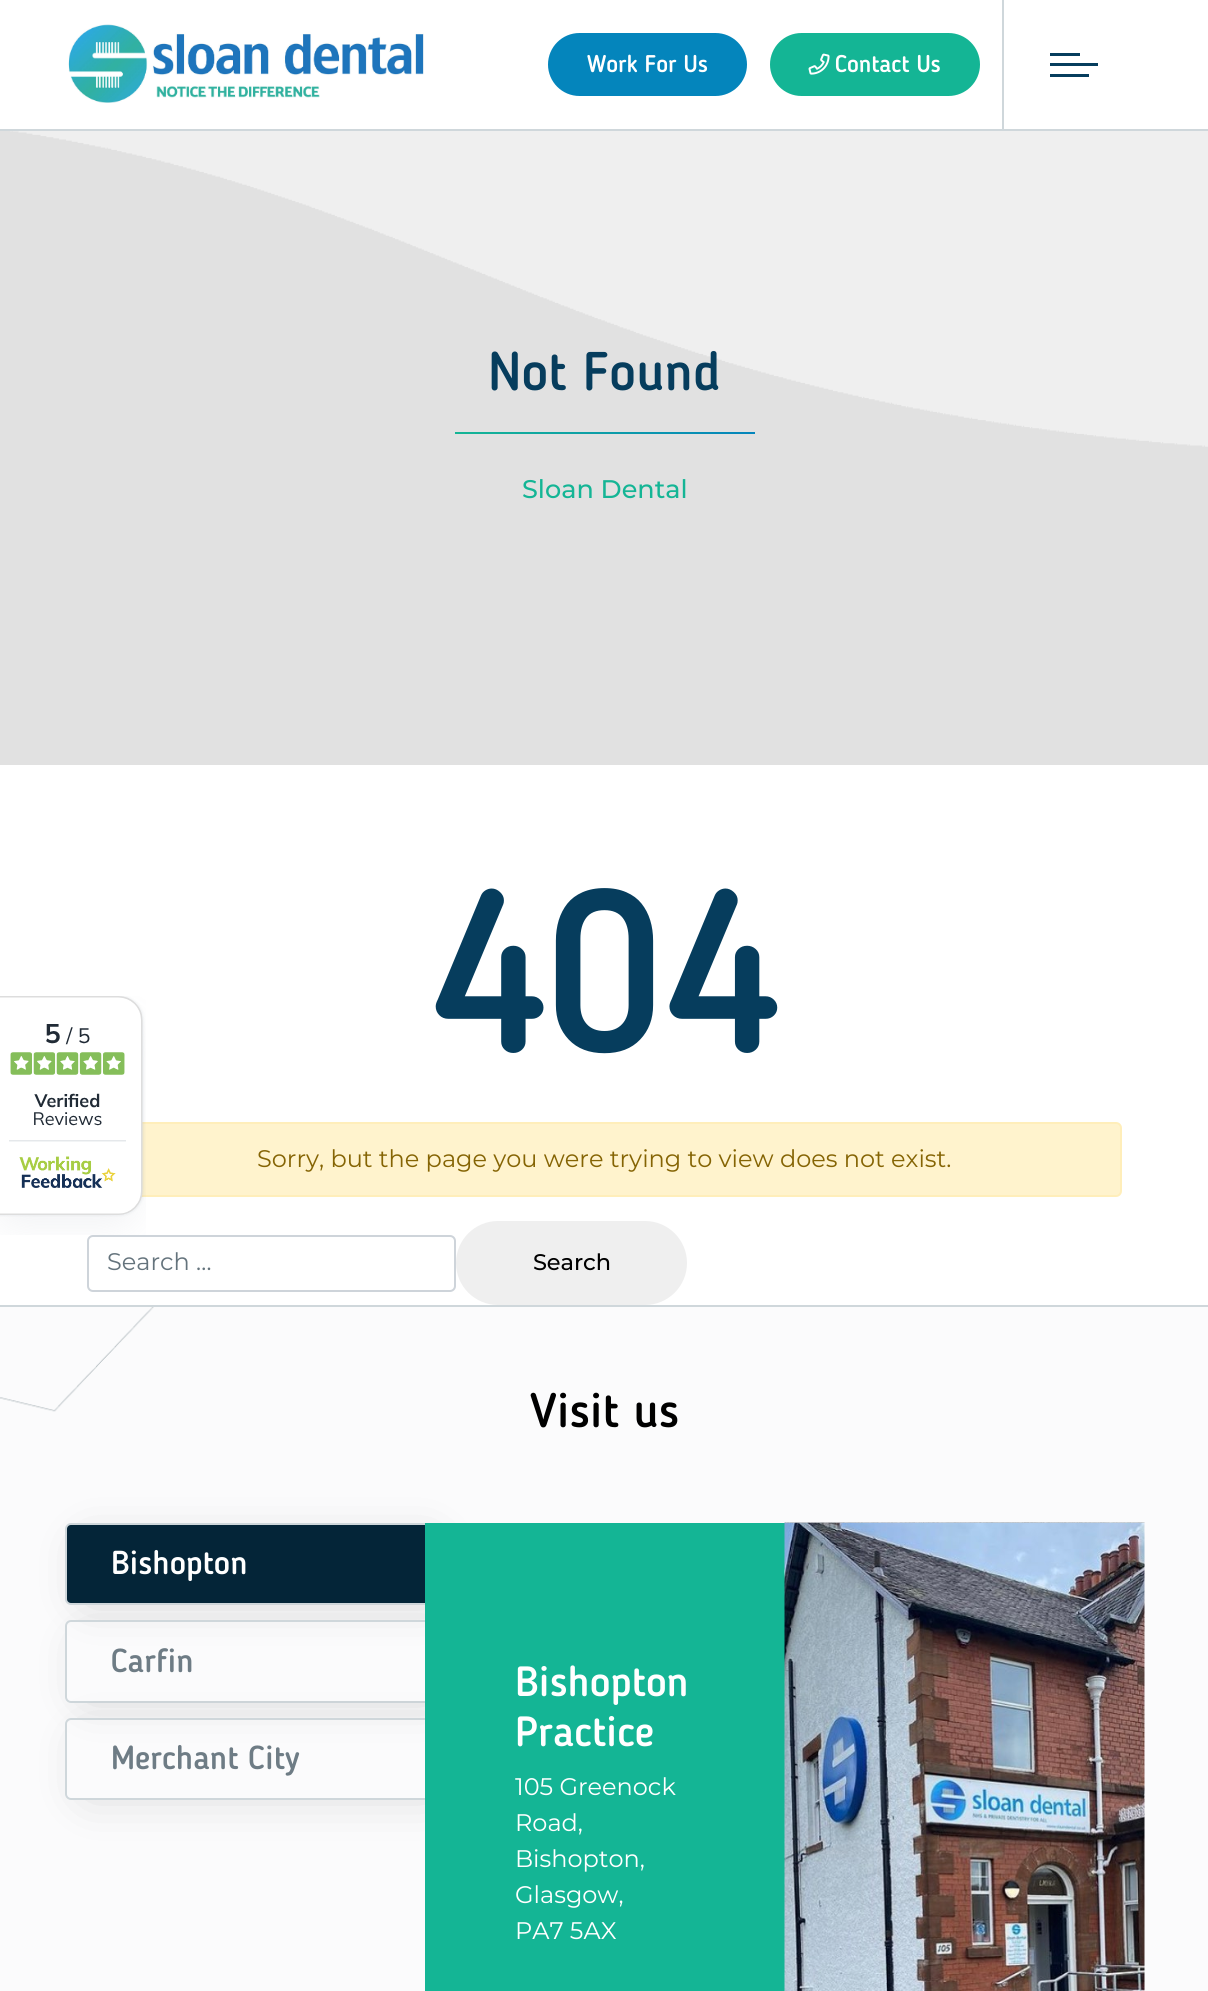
import math
import cairo


def write_spaced(ctx, x, y, s, letter, word):
	ctx.move_to(x, y)
	for ch in s:
		ctx.show_text(ch)
		ctx.rel_move_to(letter + word * (ch == ' '), 0)

def round_path(ctx, x, y, w, h, r):
	ctx.new_sub_path()
	for i, (u, v) in enumerate([(x + w - r, y + h - r), (x + r, y + h - r), (x + r, y + r), (x + w - r, y + r)]):
		ctx.arc(u, v, r, i * math.pi / 2, (i + 1) * math.pi / 2)
	ctx.close_path()

def blur_box(ctx, x, y, w, h, r, blur, alpha):
	ctx.push_group_with_content(cairo.CONTENT_ALPHA)
	ctx.set_operator(cairo.OPERATOR_SOURCE)
	for i in range(15, -16, -2):
		e = blur * i / 6
		if min(w, h) + 2 * e > 0:
			ctx.set_source_rgba(0, 0, 0, alpha * math.erfc((i - 1) / 8.5) / 2)
			round_path(ctx, x - e, y - e, w + 2 * e, h + 2 * e, max(0, min(r + e + blur * .6, min(w, h) / 2 + e)))
			ctx.fill()
	ctx.mask(ctx.pop_group())

def paste(ctx, path, x, y, w, h):
	ctx.save()
	ctx.set_source_surface(cairo.ImageSurface.create_from_png(path), x, y)
	ctx.rectangle(x, y, w, h)
	ctx.fill()
	ctx.restore()

def draw(ctx):
	ctx.set_source_rgb(1, 1, 1)
	ctx.paint()
	ctx.set_source_rgb(0.812, 0.843, 0.859)
	ctx.rectangle(0, 129, 1208, 2)
	ctx.fill()
	paste(ctx, 'media/1.png', 68, 24, 356, 79)
	ctx.set_source_rgb(0.016, 0.522, 0.737)
	round_path(ctx, 549, 34, 197, 61, 30.5)
	ctx.fill_preserve()
	ctx.stroke()
	ctx.select_font_face('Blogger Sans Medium')
	ctx.set_font_size(24)
	ctx.set_source_rgb(1, 1, 1)
	write_spaced(ctx, 587, 72, 'Work For Us', -0.1, 0)
	ctx.set_source_rgb(0.812, 0.843, 0.859)
	ctx.rectangle(1002, 0, 2, 129)
	ctx.fill()
	ctx.set_source_rgb(0.082, 0.71, 0.584)
	round_path(ctx, 771, 34, 208, 61, 30.5)
	ctx.fill_preserve()
	ctx.stroke()
	paste(ctx, 'media/2.png', 808, 53, 22, 22)
	ctx.set_source_rgb(1, 1, 1)
	write_spaced(ctx, 835, 72, 'Contact Us', -0.1, 0)
	ctx.set_source_rgb(0.027, 0.239, 0.365)
	ctx.rectangle(1050, 53, 30, 3)
	ctx.rectangle(1050, 63, 48, 3)
	ctx.rectangle(1050, 74, 39, 3)
	ctx.fill()
	ctx.set_source_rgb(0.937, 0.937, 0.937)
	ctx.rectangle(0, 131, 1208, 634)
	ctx.fill()
	paste(ctx, 'media/3.png', 0, 131, 1208, 634)
	ctx.set_font_size(54)
	ctx.set_source_rgb(0.027, 0.239, 0.365)
	ctx.move_to(488, 390)
	ctx.show_text('Not Found')
	gradient = cairo.LinearGradient(455, 433, 755, 433)
	gradient.add_color_stop_rgba(0, 0.082, 0.71, 0.584, 1)
	gradient.add_color_stop_rgba(1, 0.016, 0.522, 0.737, 1)
	ctx.set_source(gradient)
	ctx.rectangle(455, 432, 300, 2)
	ctx.fill()
	ctx.select_font_face('Montserrat Medium')
	ctx.set_font_size(25.5)
	ctx.set_source_rgb(0.082, 0.71, 0.584)
	ctx.move_to(522, 498)
	ctx.show_text('Sloan Dental')
	ctx.set_source_rgb(1, 0.953, 0.804)
	round_path(ctx, 88, 1123, 1033, 73, 5)
	ctx.fill_preserve()
	ctx.set_source_rgb(1, 0.933, 0.729)
	ctx.stroke()
	paste(ctx, 'media/4.png', 0, 996, 146, 239)
	ctx.select_font_face('Blogger Sans Medium')
	ctx.set_font_size(225)
	ctx.set_source_rgb(0.027, 0.239, 0.365)
	ctx.move_to(429, 1051)
	ctx.show_text('404')
	ctx.select_font_face('Montserrat')
	ctx.set_font_size(24)
	ctx.set_source_rgb(0.522, 0.392, 0.016)
	ctx.move_to(257, 1167)
	ctx.show_text('Sorry, but the page you were trying to view does not exist.')
	round_path(ctx, 88, 1236, 367, 55, 5)
	ctx.set_source_rgb(0.808, 0.831, 0.855)
	ctx.stroke()
	ctx.set_source_rgb(0.392, 0.451, 0.486)
	ctx.move_to(107, 1270)
	ctx.show_text('Search …')
	ctx.set_source_rgb(0.937, 0.937, 0.937)
	round_path(ctx, 456, 1221, 231, 84, 42)
	ctx.fill()
	ctx.select_font_face('Montserrat Medium')
	ctx.set_font_size(22.5)
	ctx.set_source_rgb(0, 0, 0)
	write_spaced(ctx, 533, 1270, 'Search', -0.1, 0)
	ctx.set_source_rgb(0.984, 0.984, 0.988)
	ctx.rectangle(0, 1307, 1208, 684)
	ctx.fill()
	paste(ctx, 'media/5.png', 0, 1307, 154, 105)
	ctx.set_source_rgb(0.812, 0.843, 0.859)
	ctx.rectangle(0, 1305, 1208, 2)
	ctx.fill()
	ctx.select_font_face('Blogger Sans Medium')
	ctx.set_font_size(48)
	ctx.set_source_rgb(0, 0, 0)
	ctx.move_to(530, 1427)
	ctx.show_text('Visit us')
	ctx.set_source_rgb(0, 0, 0)
	blur_box(ctx, 87, 1545, 345, 53, 0, 26, 0.15)
	ctx.set_source_rgb(0.016, 0.145, 0.22)
	round_path(ctx, 66, 1524, 373, 80, 5)
	ctx.fill_preserve()
	ctx.set_source_rgb(0.812, 0.843, 0.859)
	ctx.stroke()
	ctx.set_font_size(33)
	ctx.set_source_rgb(1, 1, 1)
	ctx.move_to(111, 1574)
	ctx.show_text('Bishopton')
	ctx.save()
	ctx.set_fill_rule(cairo.FILL_RULE_EVEN_ODD)
	ctx.new_path()
	ctx.move_to(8, 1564)
	ctx.line_to(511, 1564)
	ctx.line_to(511, 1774)
	ctx.line_to(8, 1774)
	ctx.close_path()
	ctx.move_to(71, 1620)
	ctx.line_to(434, 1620)
	ctx.curve_to(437.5, 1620, 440, 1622.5, 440, 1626)
	ctx.line_to(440, 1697)
	ctx.curve_to(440, 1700.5, 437.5, 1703, 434, 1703)
	ctx.line_to(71, 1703)
	ctx.curve_to(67.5, 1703, 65, 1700.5, 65, 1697)
	ctx.line_to(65, 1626)
	ctx.curve_to(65, 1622.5, 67.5, 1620, 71, 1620)
	ctx.close_path()
	ctx.clip()
	ctx.set_source_rgb(0, 0, 0)
	blur_box(ctx, 87, 1643, 345, 52, 0, 26, 0.15)
	ctx.restore()
	round_path(ctx, 66, 1621, 373, 81, 5)
	ctx.set_source_rgb(0.812, 0.843, 0.859)
	ctx.stroke()
	ctx.set_source_rgb(0.431, 0.486, 0.522)
	ctx.move_to(111, 1672)
	ctx.show_text('Carfin')
	ctx.save()
	ctx.set_fill_rule(cairo.FILL_RULE_EVEN_ODD)
	ctx.new_path()
	ctx.move_to(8, 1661)
	ctx.line_to(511, 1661)
	ctx.line_to(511, 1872)
	ctx.line_to(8, 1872)
	ctx.close_path()
	ctx.move_to(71, 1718)
	ctx.line_to(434, 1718)
	ctx.curve_to(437.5, 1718, 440, 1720.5, 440, 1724)
	ctx.line_to(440, 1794)
	ctx.curve_to(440, 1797.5, 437.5, 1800, 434, 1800)
	ctx.line_to(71, 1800)
	ctx.curve_to(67.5, 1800, 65, 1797.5, 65, 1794)
	ctx.line_to(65, 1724)
	ctx.curve_to(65, 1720.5, 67.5, 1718, 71, 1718)
	ctx.close_path()
	ctx.clip()
	ctx.set_source_rgb(0, 0, 0)
	blur_box(ctx, 87, 1740, 345, 53, 0, 26, 0.15)
	ctx.restore()
	round_path(ctx, 66, 1719, 373, 80, 5)
	ctx.set_source_rgb(0.812, 0.843, 0.859)
	ctx.stroke()
	ctx.set_source_rgb(0.431, 0.486, 0.522)
	ctx.move_to(111, 1769)
	ctx.show_text('Merchant City')
	ctx.set_source_rgb(0.082, 0.71, 0.584)
	ctx.rectangle(425, 1523, 360, 468)
	ctx.fill()
	ctx.set_font_size(42)
	ctx.set_source_rgb(1, 1, 1)
	ctx.move_to(515, 1696)
	ctx.show_text('Bishopton')
	ctx.move_to(515, 1746)
	ctx.show_text('Practice')
	ctx.select_font_face('Montserrat')
	ctx.set_font_size(24)
	for x, y, s in [
		(515, 1795, '105 Greenock'),
		(515, 1831, 'Road,'),
		(515, 1867, 'Bishopton,'),
		(515, 1903, 'Glasgow,'),
		(515, 1939, 'PA7 5AX'),
	]:
		ctx.move_to(x, y)
		ctx.show_text(s)
	paste(ctx, 'media/6.png', 784, 1522, 361, 469)


surface = cairo.ImageSurface(cairo.FORMAT_RGB24, 1208, 1991)
ctx = cairo.Context(surface)
options = cairo.FontOptions()
options.set_hint_metrics(cairo.HINT_METRICS_OFF)
options.set_hint_style(cairo.HINT_STYLE_NONE)
ctx.set_font_options(options)
ctx.set_miter_limit(4)
draw(ctx)
surface.write_to_png('image.png')
